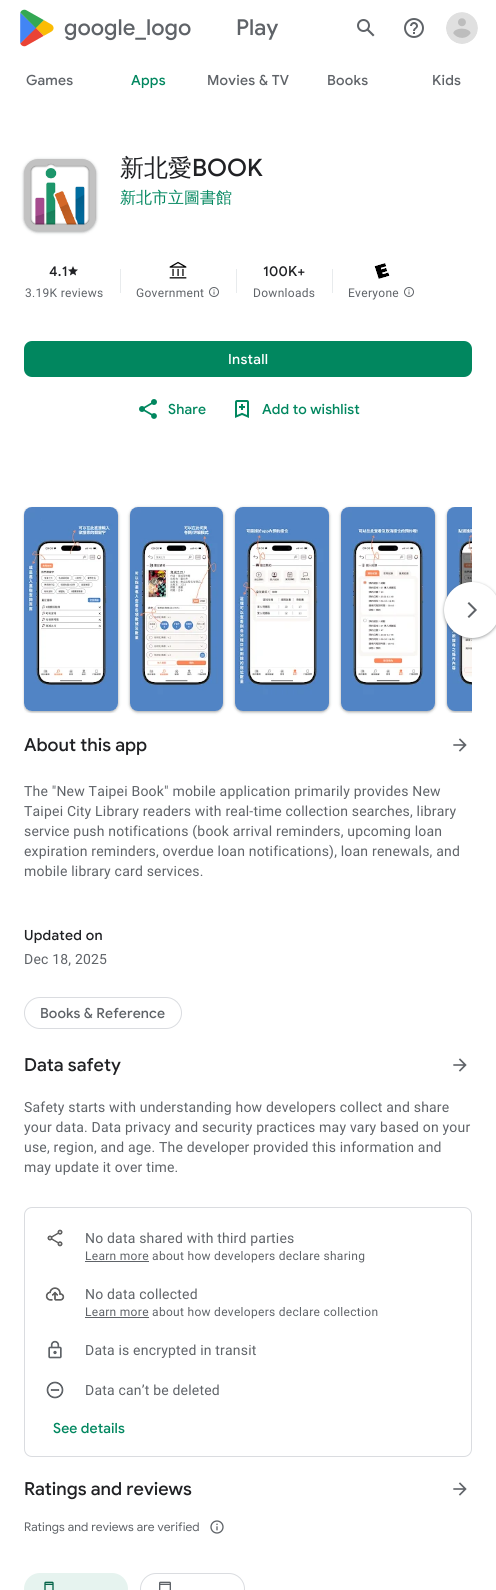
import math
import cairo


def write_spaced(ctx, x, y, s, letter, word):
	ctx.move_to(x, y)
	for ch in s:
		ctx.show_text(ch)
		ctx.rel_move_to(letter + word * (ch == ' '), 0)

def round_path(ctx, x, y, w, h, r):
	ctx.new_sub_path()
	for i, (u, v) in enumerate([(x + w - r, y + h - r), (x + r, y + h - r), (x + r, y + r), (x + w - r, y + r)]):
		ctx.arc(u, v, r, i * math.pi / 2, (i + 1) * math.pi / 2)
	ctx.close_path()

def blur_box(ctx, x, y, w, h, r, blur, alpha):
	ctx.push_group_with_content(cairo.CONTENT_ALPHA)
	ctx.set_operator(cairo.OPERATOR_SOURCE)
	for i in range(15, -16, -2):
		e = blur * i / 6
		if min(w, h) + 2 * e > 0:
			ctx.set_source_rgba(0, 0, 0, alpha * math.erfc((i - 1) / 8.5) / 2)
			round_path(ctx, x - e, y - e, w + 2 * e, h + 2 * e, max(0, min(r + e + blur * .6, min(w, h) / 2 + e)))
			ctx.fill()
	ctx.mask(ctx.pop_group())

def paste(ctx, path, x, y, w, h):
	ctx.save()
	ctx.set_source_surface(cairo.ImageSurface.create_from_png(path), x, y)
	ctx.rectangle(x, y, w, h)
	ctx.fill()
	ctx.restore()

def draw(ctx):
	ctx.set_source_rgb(1, 1, 1)
	ctx.paint()
	paste(ctx, 'media/1.png', 20, 9, 34, 38)
	ctx.select_font_face('Google Sans Medium')
	ctx.set_font_size(22)
	ctx.set_source_rgb(0.373, 0.388, 0.408)
	write_spaced(ctx, 64, 35, 'google_logo', 0, 55)
	write_spaced(ctx, 236, 35, 'Play', 0, 55)
	paste(ctx, 'media/2.png', 357, 19, 18, 18)
	paste(ctx, 'media/3.png', 404, 18, 20, 20)
	paste(ctx, 'media/4.png', 446, 12, 32, 32)
	ctx.set_font_size(14)
	write_spaced(ctx, 26, 85, 'Games', 0.25, 0)
	ctx.set_source_rgb(0.004, 0.529, 0.373)
	write_spaced(ctx, 131, 85, 'Apps', 0.25, 0)
	ctx.set_source_rgb(0.373, 0.388, 0.408)
	for x, y, s in [
		(207, 85, 'Movies & TV'),
		(327, 85, 'Books'),
		(432, 85, 'Kids'),
	]:
		write_spaced(ctx, x, y, s, 0.25, 0)
	ctx.set_source_rgb(0.235, 0.251, 0.263)
	blur_box(ctx, 23, 159, 74, 74, 15, 1.5, 0.15)
	blur_box(ctx, 24, 160, 72, 72, 14, 1, 0.3)
	paste(ctx, 'media/5.png', 24, 159, 72, 72)
	ctx.select_font_face('WenQuanYi Zen Hei Medium')
	ctx.set_font_size(24)
	ctx.set_source_rgb(0.125, 0.129, 0.141)
	ctx.move_to(120, 176)
	ctx.show_text('新北愛')
	ctx.select_font_face('Google Sans Medium')
	ctx.move_to(192, 176)
	ctx.show_text('BOOK')
	ctx.select_font_face('WenQuanYi Zen Hei Medium')
	ctx.set_font_size(16)
	ctx.set_source_rgb(0.004, 0.529, 0.373)
	ctx.move_to(120, 203)
	ctx.show_text('新北市立圖書館')
	ctx.select_font_face('Google Sans Medium')
	ctx.set_font_size(14)
	ctx.set_source_rgb(0.125, 0.129, 0.141)
	write_spaced(ctx, 49, 276, '4.1', 0.25, 0)
	paste(ctx, 'media/6.png', 68, 266, 10, 10)
	ctx.select_font_face('Roboto')
	ctx.set_font_size(12)
	ctx.set_source_rgb(0.373, 0.388, 0.408)
	write_spaced(ctx, 25, 297, '3.19K reviews', 0.3, 0)
	ctx.set_source_rgb(0.91, 0.918, 0.929)
	ctx.rectangle(120, 269, 1, 24)
	ctx.fill()
	paste(ctx, 'media/7.png', 169, 261, 18, 18)
	ctx.set_source_rgb(0.373, 0.388, 0.408)
	write_spaced(ctx, 136, 297, 'Government', 0.3, 0)
	paste(ctx, 'media/8.png', 209, 287, 10, 10)
	ctx.set_source_rgb(0.91, 0.918, 0.929)
	ctx.rectangle(236, 269, 1, 24)
	ctx.fill()
	ctx.select_font_face('Google Sans Medium')
	ctx.set_font_size(14)
	ctx.set_source_rgb(0.125, 0.129, 0.141)
	write_spaced(ctx, 263, 276, '100K+', 0.25, 0)
	ctx.select_font_face('Roboto')
	ctx.set_font_size(12)
	ctx.set_source_rgb(0.373, 0.388, 0.408)
	write_spaced(ctx, 253, 297, 'Downloads', 0.3, 0)
	ctx.set_source_rgb(0.91, 0.918, 0.929)
	ctx.rectangle(332, 269, 1, 24)
	ctx.fill()
	paste(ctx, 'media/9.png', 374, 263, 16, 16)
	ctx.set_source_rgb(0.373, 0.388, 0.408)
	write_spaced(ctx, 348, 297, 'Everyone', 0.3, 0)
	paste(ctx, 'media/8.png', 404, 287, 10, 10)
	ctx.set_source_rgb(0.004, 0.529, 0.373)
	round_path(ctx, 24, 341, 448, 36, 8)
	ctx.fill()
	ctx.select_font_face('Google Sans Medium')
	ctx.set_font_size(14)
	ctx.set_source_rgb(1, 1, 1)
	write_spaced(ctx, 228, 364, 'Install', 0.25, 0)
	paste(ctx, 'media/10.png', 139, 399, 18, 20)
	ctx.set_source_rgb(0.004, 0.529, 0.373)
	write_spaced(ctx, 168, 414, 'Share', 0.1, 0)
	paste(ctx, 'media/11.png', 235, 400, 14, 18)
	write_spaced(ctx, 262, 414, 'Add to wishlist', 0.1, 0)
	ctx.save()
	ctx.rectangle(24, 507, 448, 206)
	ctx.clip()
	ctx.set_source_rgb(0.235, 0.251, 0.263)
	blur_box(ctx, 23, 507, 96, 206, 9, 1.5, 0.15)
	ctx.restore()
	ctx.save()
	ctx.set_fill_rule(cairo.FILL_RULE_EVEN_ODD)
	ctx.new_path()
	ctx.move_to(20, 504)
	ctx.line_to(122, 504)
	ctx.line_to(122, 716)
	ctx.line_to(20, 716)
	ctx.close_path()
	ctx.move_to(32, 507)
	ctx.line_to(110, 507)
	ctx.curve_to(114.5, 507, 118, 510.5, 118, 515)
	ctx.line_to(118, 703)
	ctx.curve_to(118, 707.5, 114.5, 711, 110, 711)
	ctx.line_to(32, 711)
	ctx.curve_to(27.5, 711, 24, 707.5, 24, 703)
	ctx.line_to(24, 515)
	ctx.curve_to(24, 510.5, 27.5, 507, 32, 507)
	ctx.close_path()
	ctx.clip()
	ctx.set_source_rgb(0.235, 0.251, 0.263)
	blur_box(ctx, 24, 508, 94, 204, 8, 1, 0.3)
	ctx.restore()
	paste(ctx, 'media/12.png', 24, 507, 94, 204)
	ctx.save()
	ctx.set_fill_rule(cairo.FILL_RULE_EVEN_ODD)
	ctx.new_path()
	ctx.move_to(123, 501)
	ctx.line_to(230, 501)
	ctx.line_to(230, 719)
	ctx.line_to(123, 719)
	ctx.close_path()
	ctx.move_to(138, 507)
	ctx.line_to(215, 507)
	ctx.curve_to(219.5, 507, 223, 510.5, 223, 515)
	ctx.line_to(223, 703)
	ctx.curve_to(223, 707.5, 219.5, 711, 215, 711)
	ctx.line_to(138, 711)
	ctx.curve_to(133.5, 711, 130, 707.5, 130, 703)
	ctx.line_to(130, 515)
	ctx.curve_to(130, 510.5, 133.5, 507, 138, 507)
	ctx.close_path()
	ctx.clip()
	ctx.set_source_rgb(0.235, 0.251, 0.263)
	blur_box(ctx, 129, 507, 95, 206, 9, 1.5, 0.15)
	ctx.restore()
	ctx.set_source_rgb(0.235, 0.251, 0.263)
	blur_box(ctx, 130, 508, 93, 204, 8, 1, 0.3)
	paste(ctx, 'media/13.png', 130, 507, 93, 204)
	ctx.save()
	ctx.set_fill_rule(cairo.FILL_RULE_EVEN_ODD)
	ctx.new_path()
	ctx.move_to(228, 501)
	ctx.line_to(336, 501)
	ctx.line_to(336, 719)
	ctx.line_to(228, 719)
	ctx.close_path()
	ctx.move_to(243, 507)
	ctx.line_to(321, 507)
	ctx.curve_to(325.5, 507, 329, 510.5, 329, 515)
	ctx.line_to(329, 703)
	ctx.curve_to(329, 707.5, 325.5, 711, 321, 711)
	ctx.line_to(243, 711)
	ctx.curve_to(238.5, 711, 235, 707.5, 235, 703)
	ctx.line_to(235, 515)
	ctx.curve_to(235, 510.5, 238.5, 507, 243, 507)
	ctx.close_path()
	ctx.clip()
	blur_box(ctx, 234, 507, 96, 206, 9, 1.5, 0.15)
	ctx.restore()
	blur_box(ctx, 235, 508, 94, 204, 8, 1, 0.3)
	paste(ctx, 'media/14.png', 235, 507, 94, 204)
	ctx.save()
	ctx.set_fill_rule(cairo.FILL_RULE_EVEN_ODD)
	ctx.new_path()
	ctx.move_to(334, 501)
	ctx.line_to(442, 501)
	ctx.line_to(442, 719)
	ctx.line_to(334, 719)
	ctx.close_path()
	ctx.move_to(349, 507)
	ctx.line_to(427, 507)
	ctx.curve_to(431.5, 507, 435, 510.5, 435, 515)
	ctx.line_to(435, 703)
	ctx.curve_to(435, 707.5, 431.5, 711, 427, 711)
	ctx.line_to(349, 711)
	ctx.curve_to(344.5, 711, 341, 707.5, 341, 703)
	ctx.line_to(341, 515)
	ctx.curve_to(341, 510.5, 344.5, 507, 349, 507)
	ctx.close_path()
	ctx.clip()
	blur_box(ctx, 340, 507, 96, 206, 9, 1.5, 0.15)
	ctx.restore()
	blur_box(ctx, 341, 508, 94, 204, 8, 1, 0.3)
	paste(ctx, 'media/15.png', 341, 507, 94, 204)
	ctx.save()
	ctx.rectangle(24, 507, 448, 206)
	ctx.clip()
	blur_box(ctx, 446, 507, 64, 206, 9, 1.5, 0.15)
	blur_box(ctx, 447, 508, 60, 204, 8, 1, 0.3)
	ctx.restore()
	paste(ctx, 'media/16.png', 447, 507, 25, 204)
	blur_box(ctx, 443, 582, 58, 58, 29, 1.5, 0.15)
	blur_box(ctx, 444, 583, 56, 56, 28, 1, 0.3)
	ctx.set_source_rgb(1, 1, 1)
	ctx.arc(472, 610, 28, 0, 2 * math.pi)
	ctx.fill()
	paste(ctx, 'media/17.png', 467, 602, 10, 16)
	ctx.set_font_size(18)
	ctx.set_source_rgb(0.125, 0.129, 0.141)
	ctx.move_to(24, 751)
	ctx.show_text('About this app')
	paste(ctx, 'media/18.png', 453, 738, 14, 14)
	ctx.select_font_face('Roboto')
	ctx.set_font_size(14)
	ctx.set_source_rgb(0.373, 0.388, 0.408)
	for x, y, s in [
		(24, 796, 'The "New Taipei Book" mobile application primarily provides New'),
		(24, 816, 'Taipei City Library readers with real-time collection searches, library'),
		(24, 836, 'service push notifications (book arrival reminders, upcoming loan'),
		(24, 856, 'expiration reminders, overdue loan notifications), loan renewals, and'),
		(24, 876, 'mobile library card services.'),
	]:
		write_spaced(ctx, x, y, s, 0.2, 0)
	ctx.select_font_face('Google Sans Medium')
	ctx.set_source_rgb(0.125, 0.129, 0.141)
	write_spaced(ctx, 24, 940, 'Updated on', 0.25, 0)
	ctx.select_font_face('Roboto')
	ctx.set_source_rgb(0.373, 0.388, 0.408)
	write_spaced(ctx, 24, 964, 'Dec 18, 2025', 0.2, 0)
	round_path(ctx, 24.5, 997.5, 157, 31, 15.5)
	ctx.set_source_rgb(0.855, 0.863, 0.878)
	ctx.set_line_width(1)
	ctx.stroke()
	ctx.select_font_face('Google Sans Medium')
	ctx.set_source_rgb(0.373, 0.388, 0.408)
	write_spaced(ctx, 40, 1018, 'Books & Reference', 0.1, 0)
	ctx.set_font_size(18)
	ctx.set_source_rgb(0.125, 0.129, 0.141)
	ctx.move_to(24, 1071)
	ctx.show_text('Data safety')
	paste(ctx, 'media/18.png', 453, 1058, 14, 14)
	ctx.select_font_face('Roboto')
	ctx.set_font_size(14)
	ctx.set_source_rgb(0.373, 0.388, 0.408)
	for x, y, s in [
		(24, 1112, 'Safety starts with understanding how developers collect and share'),
		(24, 1132, 'your data. Data privacy and security practices may vary based on your'),
		(24, 1152, 'use, region, and age. The developer provided this information and'),
		(24, 1172, 'may update it over time.'),
	]:
		write_spaced(ctx, x, y, s, 0.2, 0)
	round_path(ctx, 24.5, 1207.5, 447, 249, 7.5)
	ctx.set_source_rgb(0.855, 0.863, 0.878)
	ctx.stroke()
	paste(ctx, 'media/19.png', 47, 1229, 16, 18)
	ctx.set_source_rgb(0.373, 0.388, 0.408)
	write_spaced(ctx, 85, 1243, 'No data shared with third parties', 0.2, 0)
	ctx.rectangle(85, 1261, 64, 1)
	ctx.fill()
	ctx.set_font_size(12)
	write_spaced(ctx, 85, 1260, 'Learn more about how developers declare sharing', 0.3, 0)
	paste(ctx, 'media/20.png', 45, 1287, 20, 14)
	ctx.set_font_size(14)
	write_spaced(ctx, 85, 1299, 'No data collected', 0.2, 0)
	ctx.rectangle(85, 1317, 64, 1)
	ctx.fill()
	ctx.set_font_size(12)
	write_spaced(ctx, 85, 1316, 'Learn more about how developers declare collection', 0.3, 0)
	paste(ctx, 'media/21.png', 48, 1340, 14, 19)
	ctx.set_font_size(14)
	write_spaced(ctx, 85, 1355, 'Data is encrypted in transit', 0.2, 0)
	paste(ctx, 'media/22.png', 46, 1381, 18, 18)
	write_spaced(ctx, 85, 1395, 'Data can’t be deleted', 0.2, 0)
	ctx.select_font_face('Google Sans Medium')
	ctx.set_source_rgb(0.004, 0.529, 0.373)
	write_spaced(ctx, 53, 1433, 'See details', 0.1, 0)
	ctx.set_font_size(18)
	ctx.set_source_rgb(0.125, 0.129, 0.141)
	ctx.move_to(24, 1495)
	ctx.show_text('Ratings and reviews')
	ctx.select_font_face('Google Sans')
	ctx.set_font_size(12)
	ctx.set_source_rgb(0.373, 0.388, 0.408)
	write_spaced(ctx, 24, 1531, 'Ratings and reviews are verified', 0.1, 0)
	paste(ctx, 'media/23.png', 210, 1520, 14, 14)
	paste(ctx, 'media/18.png', 453, 1482, 14, 14)
	ctx.set_source_rgb(0.902, 0.953, 0.937)
	round_path(ctx, 24, 1573, 104, 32, 16)
	ctx.fill()
	paste(ctx, 'media/24.png', 44, 1581, 10, 9)
	round_path(ctx, 140.5, 1573.5, 104, 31, 15.5)
	ctx.set_source_rgb(0.855, 0.863, 0.878)
	ctx.stroke()
	paste(ctx, 'media/25.png', 159, 1581, 12, 9)


surface = cairo.ImageSurface(cairo.FORMAT_RGB24, 496, 1590)
ctx = cairo.Context(surface)
options = cairo.FontOptions()
options.set_hint_metrics(cairo.HINT_METRICS_OFF)
options.set_hint_style(cairo.HINT_STYLE_NONE)
ctx.set_font_options(options)
ctx.set_miter_limit(4)
draw(ctx)
surface.write_to_png('image.png')
